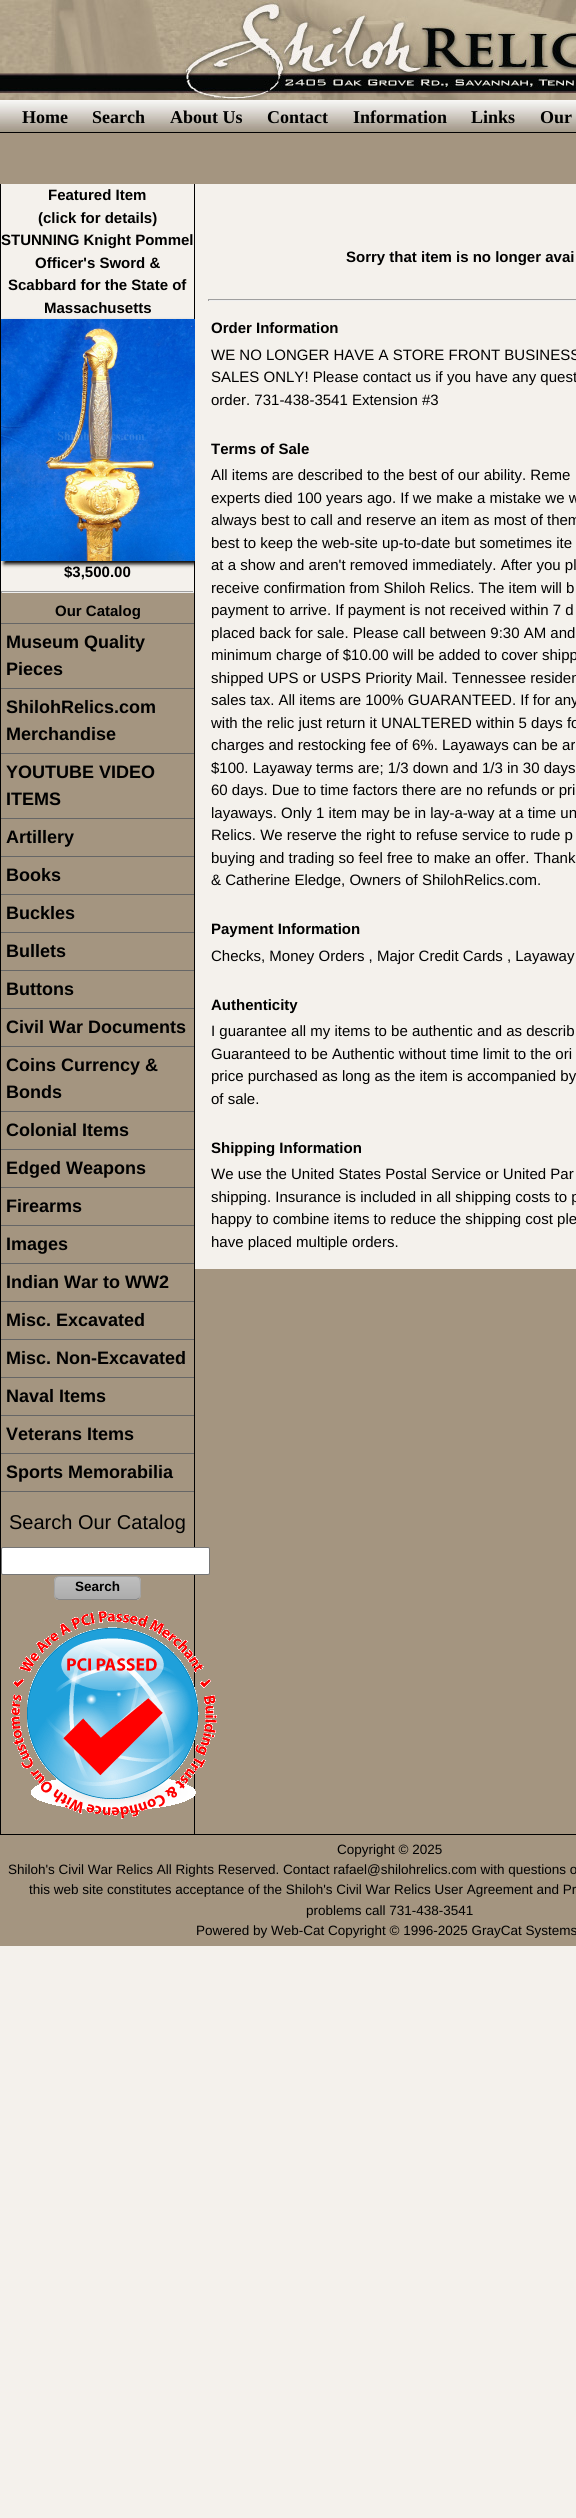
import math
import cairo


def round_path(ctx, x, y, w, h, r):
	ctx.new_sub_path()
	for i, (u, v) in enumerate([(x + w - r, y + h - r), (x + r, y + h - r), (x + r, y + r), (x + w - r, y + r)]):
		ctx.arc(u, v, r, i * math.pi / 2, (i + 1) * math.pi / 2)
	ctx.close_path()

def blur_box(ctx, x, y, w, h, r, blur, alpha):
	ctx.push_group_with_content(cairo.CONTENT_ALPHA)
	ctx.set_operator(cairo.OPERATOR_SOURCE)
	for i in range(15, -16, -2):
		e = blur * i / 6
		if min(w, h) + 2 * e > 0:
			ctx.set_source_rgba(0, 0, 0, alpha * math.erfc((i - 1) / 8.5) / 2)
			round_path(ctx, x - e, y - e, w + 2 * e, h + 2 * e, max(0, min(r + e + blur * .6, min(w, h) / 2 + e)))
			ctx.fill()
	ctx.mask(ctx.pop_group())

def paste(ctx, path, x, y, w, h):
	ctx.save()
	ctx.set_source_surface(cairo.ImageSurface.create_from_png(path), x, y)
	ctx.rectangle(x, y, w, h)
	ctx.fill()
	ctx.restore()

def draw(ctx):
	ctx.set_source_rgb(0.957, 0.945, 0.925)
	ctx.paint()
	ctx.set_source_rgb(0.643, 0.584, 0.502)
	ctx.rectangle(0, 133, 576, 1813)
	ctx.fill()
	paste(ctx, 'media/1.png', 0, 0, 576, 100)
	paste(ctx, 'media/2.png', 0, 100, 576, 32)
	ctx.set_source_rgb(0, 0, 0)
	ctx.rectangle(0, 132, 576, 1)
	ctx.fill()
	ctx.select_font_face('Liberation Serif', cairo.FONT_SLANT_NORMAL, cairo.FONT_WEIGHT_BOLD)
	ctx.set_font_size(18)
	for x, y, s in [
		(22, 123, 'Home'),
		(92, 123, 'Search'),
		(170, 123, 'About Us'),
		(267, 123, 'Contact'),
		(353, 123, 'Information'),
		(471, 123, 'Links'),
		(540, 123, 'Our'),
	]:
		ctx.move_to(x, y)
		ctx.show_text(s)
	ctx.rectangle(194, 184, 1, 1650)
	ctx.rectangle(0, 184, 1, 1650)
	ctx.fill()
	ctx.set_source_rgb(0.957, 0.945, 0.925)
	ctx.rectangle(1, 184, 193, 407)
	ctx.fill()
	ctx.select_font_face('Liberation Sans', cairo.FONT_SLANT_NORMAL, cairo.FONT_WEIGHT_BOLD)
	ctx.set_font_size(15)
	ctx.set_source_rgb(0, 0, 0)
	for x, y, s in [
		(48, 200, 'Featured Item'),
		(38, 223, '(click for details)'),
		(1, 245, 'STUNNING Knight Pommel'),
		(35, 268, 'Officer\'s Sword &'),
		(8, 290, 'Scabbard for the State of'),
		(44, 313, 'Massachusetts'),
	]:
		ctx.move_to(x, y)
		ctx.show_text(s)
	ctx.set_source_rgb(0, 0, 0)
	blur_box(ctx, 4, 322, 200, 242, 0, 2, 1)
	paste(ctx, 'media/3.png', 1, 319, 194, 242)
	ctx.set_source_rgb(0, 0, 0)
	ctx.move_to(64, 577)
	ctx.show_text('$3,500.00')
	ctx.set_source_rgb(0.624, 0.624, 0.624)
	ctx.rectangle(1, 591, 193, 1)
	ctx.fill()
	ctx.set_source_rgb(0.933, 0.933, 0.933)
	ctx.rectangle(193, 591, 1, 2)
	ctx.rectangle(1, 592, 193, 1)
	ctx.fill()
	ctx.set_source_rgb(0.624, 0.624, 0.624)
	ctx.rectangle(1, 591, 1, 2)
	ctx.fill()
	ctx.set_source_rgb(0, 0, 0)
	ctx.move_to(55, 616)
	ctx.show_text('Our Catalog')
	ctx.set_source_rgb(0.4, 0.4, 0.4)
	ctx.rectangle(1, 623, 193, 1)
	ctx.fill()
	ctx.rectangle(1, 688, 193, 1)
	ctx.fill()
	ctx.set_font_size(18)
	ctx.set_source_rgb(0, 0, 0)
	ctx.move_to(6, 648)
	ctx.show_text('Museum Quality')
	ctx.move_to(6, 675)
	ctx.show_text('Pieces')
	ctx.set_source_rgb(0.4, 0.4, 0.4)
	ctx.rectangle(1, 753, 193, 1)
	ctx.fill()
	ctx.set_source_rgb(0, 0, 0)
	ctx.move_to(6, 713)
	ctx.show_text('ShilohRelics.com')
	ctx.move_to(6, 740)
	ctx.show_text('Merchandise')
	ctx.set_source_rgb(0.4, 0.4, 0.4)
	ctx.rectangle(1, 818, 193, 1)
	ctx.fill()
	ctx.set_source_rgb(0, 0, 0)
	ctx.move_to(6, 778)
	ctx.show_text('YOUTUBE VIDEO')
	ctx.move_to(6, 805)
	ctx.show_text('ITEMS')
	ctx.set_source_rgb(0.4, 0.4, 0.4)
	ctx.rectangle(1, 856, 193, 1)
	ctx.fill()
	ctx.set_source_rgb(0, 0, 0)
	ctx.move_to(6, 843)
	ctx.show_text('Artillery')
	ctx.set_source_rgb(0.4, 0.4, 0.4)
	ctx.rectangle(1, 894, 193, 1)
	ctx.fill()
	ctx.set_source_rgb(0, 0, 0)
	ctx.move_to(6, 881)
	ctx.show_text('Books')
	ctx.set_source_rgb(0.4, 0.4, 0.4)
	ctx.rectangle(1, 932, 193, 1)
	ctx.fill()
	ctx.set_source_rgb(0, 0, 0)
	ctx.move_to(6, 919)
	ctx.show_text('Buckles')
	ctx.set_source_rgb(0.4, 0.4, 0.4)
	ctx.rectangle(1, 970, 193, 1)
	ctx.fill()
	ctx.set_source_rgb(0, 0, 0)
	ctx.move_to(6, 957)
	ctx.show_text('Bullets')
	ctx.set_source_rgb(0.4, 0.4, 0.4)
	ctx.rectangle(1, 1008, 193, 1)
	ctx.fill()
	ctx.set_source_rgb(0, 0, 0)
	ctx.move_to(6, 995)
	ctx.show_text('Buttons')
	ctx.set_source_rgb(0.4, 0.4, 0.4)
	ctx.rectangle(1, 1046, 193, 1)
	ctx.fill()
	ctx.set_source_rgb(0, 0, 0)
	ctx.move_to(6, 1033)
	ctx.show_text('Civil War Documents')
	ctx.set_source_rgb(0.4, 0.4, 0.4)
	ctx.rectangle(1, 1111, 193, 1)
	ctx.fill()
	ctx.set_source_rgb(0, 0, 0)
	ctx.move_to(6, 1071)
	ctx.show_text('Coins Currency &')
	ctx.move_to(6, 1098)
	ctx.show_text('Bonds')
	ctx.set_source_rgb(0.4, 0.4, 0.4)
	ctx.rectangle(1, 1149, 193, 1)
	ctx.fill()
	ctx.set_source_rgb(0, 0, 0)
	ctx.move_to(6, 1136)
	ctx.show_text('Colonial Items')
	ctx.set_source_rgb(0.4, 0.4, 0.4)
	ctx.rectangle(1, 1187, 193, 1)
	ctx.fill()
	ctx.set_source_rgb(0, 0, 0)
	ctx.move_to(6, 1174)
	ctx.show_text('Edged Weapons')
	ctx.set_source_rgb(0.4, 0.4, 0.4)
	ctx.rectangle(1, 1225, 193, 1)
	ctx.fill()
	ctx.set_source_rgb(0, 0, 0)
	ctx.move_to(6, 1212)
	ctx.show_text('Firearms')
	ctx.set_source_rgb(0.4, 0.4, 0.4)
	ctx.rectangle(1, 1263, 193, 1)
	ctx.fill()
	ctx.set_source_rgb(0, 0, 0)
	ctx.move_to(6, 1250)
	ctx.show_text('Images')
	ctx.set_source_rgb(0.4, 0.4, 0.4)
	ctx.rectangle(1, 1301, 193, 1)
	ctx.fill()
	ctx.set_source_rgb(0, 0, 0)
	ctx.move_to(6, 1288)
	ctx.show_text('Indian War to WW2')
	ctx.set_source_rgb(0.4, 0.4, 0.4)
	ctx.rectangle(1, 1339, 193, 1)
	ctx.fill()
	ctx.set_source_rgb(0, 0, 0)
	ctx.move_to(6, 1326)
	ctx.show_text('Misc. Excavated')
	ctx.set_source_rgb(0.4, 0.4, 0.4)
	ctx.rectangle(1, 1377, 193, 1)
	ctx.fill()
	ctx.set_source_rgb(0, 0, 0)
	ctx.move_to(6, 1364)
	ctx.show_text('Misc. Non-Excavated')
	ctx.set_source_rgb(0.4, 0.4, 0.4)
	ctx.rectangle(1, 1415, 193, 1)
	ctx.fill()
	ctx.set_source_rgb(0, 0, 0)
	ctx.move_to(6, 1402)
	ctx.show_text('Naval Items')
	ctx.set_source_rgb(0.4, 0.4, 0.4)
	ctx.rectangle(1, 1453, 193, 1)
	ctx.fill()
	ctx.set_source_rgb(0, 0, 0)
	ctx.move_to(6, 1440)
	ctx.show_text('Veterans Items')
	ctx.set_source_rgb(0.4, 0.4, 0.4)
	ctx.rectangle(1, 1491, 193, 1)
	ctx.fill()
	ctx.set_source_rgb(0, 0, 0)
	ctx.move_to(6, 1478)
	ctx.show_text('Sports Memorabilia')
	ctx.select_font_face('Liberation Sans')
	ctx.set_font_size(20)
	ctx.move_to(9, 1529)
	ctx.show_text('Search Our Catalog')
	ctx.set_source_rgb(1, 1, 1)
	round_path(ctx, 1.5, 1547.5, 208, 27, 1.5)
	ctx.fill_preserve()
	ctx.set_source_rgb(0.463, 0.463, 0.463)
	ctx.set_line_width(1)
	ctx.stroke()
	ctx.save()
	round_path(ctx, 54, 1576, 87, 24, 5)
	ctx.clip()
	gradient = cairo.LinearGradient(98, 1577, 98, 1599)
	gradient.add_color_stop_rgba(0, 0.749, 0.749, 0.749, 1)
	gradient.add_color_stop_rgba(1, 0.675, 0.675, 0.675, 1)
	ctx.set_source(gradient)
	ctx.rectangle(54, 1577, 87, 22)
	ctx.fill()
	gradient = cairo.LinearGradient(98, 1599, 98, 1621)
	gradient.add_color_stop_rgba(0, 0.749, 0.749, 0.749, 1)
	gradient.add_color_stop_rgba(1, 0.675, 0.675, 0.675, 1)
	ctx.set_source(gradient)
	ctx.rectangle(54, 1599, 87, 1)
	ctx.fill()
	ctx.restore()
	ctx.new_path()
	ctx.move_to(139, 1598)
	ctx.line_to(136.5, 1599.5)
	ctx.line_to(58.5, 1599.5)
	ctx.line_to(56, 1598)
	ctx.set_source_rgb(0.525, 0.525, 0.525)
	ctx.stroke()
	ctx.new_path()
	ctx.move_to(56, 1598)
	ctx.curve_to(54, 1596, 54.5, 1593, 54.5, 1590.5)
	ctx.curve_to(54.5, 1574, 54, 1576.5, 72, 1576.5)
	ctx.line_to(123, 1576.5)
	ctx.curve_to(141, 1576.5, 140.5, 1574, 140.5, 1590.5)
	ctx.curve_to(140.5, 1593, 141, 1596, 139, 1598)
	ctx.set_source_rgb(0.635, 0.635, 0.635)
	ctx.stroke()
	ctx.select_font_face('Liberation Sans', cairo.FONT_SLANT_NORMAL, cairo.FONT_WEIGHT_BOLD)
	ctx.set_font_size(13.5)
	ctx.set_source_rgb(0, 0, 0)
	ctx.move_to(75, 1591)
	ctx.show_text('Search')
	paste(ctx, 'media/4.png', 11, 1611, 206, 208)
	ctx.set_source_rgb(0.957, 0.945, 0.925)
	ctx.rectangle(195, 184, 381, 1085)
	ctx.fill()
	ctx.set_font_size(15)
	ctx.set_source_rgb(0, 0, 0)
	ctx.move_to(346, 262)
	ctx.show_text('Sorry that item is no longer avai')
	ctx.set_source_rgb(0.624, 0.624, 0.624)
	ctx.rectangle(208, 299, 368, 1)
	ctx.fill()
	ctx.set_source_rgb(0.933, 0.933, 0.933)
	ctx.rectangle(208, 300, 368, 1)
	ctx.fill()
	ctx.set_source_rgb(0.624, 0.624, 0.624)
	ctx.rectangle(208, 299, 1, 2)
	ctx.fill()
	ctx.set_source_rgb(0, 0, 0)
	ctx.move_to(211, 333)
	ctx.show_text('Order Information')
	ctx.select_font_face('Liberation Sans')
	for x, y, s in [
		(211, 360, 'WE NO LONGER HAVE A STORE FRONT BUSINESS'),
		(211, 382, 'SALES ONLY! Please contact us if you have any quest'),
		(211, 405, 'order. 731-438-3541 Extension #3'),
	]:
		ctx.move_to(x, y)
		ctx.show_text(s)
	ctx.select_font_face('Liberation Sans', cairo.FONT_SLANT_NORMAL, cairo.FONT_WEIGHT_BOLD)
	ctx.move_to(211, 454)
	ctx.show_text('Terms of Sale')
	ctx.select_font_face('Liberation Sans')
	for x, y, s in [
		(211, 480, 'All items are described to the best of our ability. Reme'),
		(211, 503, 'experts died 100 years ago. If we make a mistake we w'),
		(211, 525, 'always best to call and reserve an item as most of them'),
		(211, 548, 'best to keep the web-site up-to-date but sometimes ite'),
		(211, 570, 'at a show and aren\'t removed immediately. After you pl'),
		(211, 593, 'receive confirmation from Shiloh Relics. The item will b'),
		(211, 615, 'payment to arrive. If payment is not received within 7 d'),
		(211, 638, 'placed back for sale. Please call between 9:30 AM and'),
		(211, 660, 'minimum charge of $10.00 will be added to cover shipp'),
		(211, 683, 'shipped UPS or USPS Priority Mail. Tennessee residen'),
		(211, 705, 'sales tax. All items are 100% GUARANTEED. If for any'),
		(211, 728, 'with the relic just return it UNALTERED within 5 days fo'),
		(211, 750, 'charges and restocking fee of 6%. Layaways can be ar'),
		(211, 773, '$100. Layaway terms are; 1/3 down and 1/3 in 30 days'),
		(211, 795, '60 days. Due to time factors there are no refunds or pri'),
		(211, 818, 'layaways. Only 1 item may be in lay-a-way at a time un'),
		(211, 840, 'Relics. We reserve the right to refuse service to rude p'),
		(211, 863, 'buying and trading so feel free to make an offer. Thank'),
		(211, 885, '& Catherine Eledge, Owners of ShilohRelics.com.'),
	]:
		ctx.move_to(x, y)
		ctx.show_text(s)
	ctx.select_font_face('Liberation Sans', cairo.FONT_SLANT_NORMAL, cairo.FONT_WEIGHT_BOLD)
	ctx.move_to(211, 934)
	ctx.show_text('Payment Information')
	ctx.select_font_face('Liberation Sans')
	ctx.move_to(211, 961)
	ctx.show_text('Checks, Money Orders , Major Credit Cards , Layaway')
	ctx.select_font_face('Liberation Sans', cairo.FONT_SLANT_NORMAL, cairo.FONT_WEIGHT_BOLD)
	ctx.move_to(211, 1010)
	ctx.show_text('Authenticity')
	ctx.select_font_face('Liberation Sans')
	for x, y, s in [
		(211, 1036, 'I guarantee all my items to be authentic and as describ'),
		(211, 1059, 'Guaranteed to be Authentic without time limit to the ori'),
		(211, 1081, 'price purchased as long as the item is accompanied by'),
		(211, 1104, 'of sale.'),
	]:
		ctx.move_to(x, y)
		ctx.show_text(s)
	ctx.select_font_face('Liberation Sans', cairo.FONT_SLANT_NORMAL, cairo.FONT_WEIGHT_BOLD)
	ctx.move_to(211, 1153)
	ctx.show_text('Shipping Information')
	ctx.select_font_face('Liberation Sans')
	for x, y, s in [
		(211, 1179, 'We use the United States Postal Service or United Par'),
		(211, 1202, 'shipping. Insurance is included in all shipping costs to p'),
		(211, 1224, 'happy to combine items to reduce the shipping cost ple'),
		(211, 1247, 'have placed multiple orders.'),
	]:
		ctx.move_to(x, y)
		ctx.show_text(s)
	ctx.rectangle(0, 1834, 576, 1)
	ctx.fill()
	ctx.set_font_size(13.5)
	for x, y, s in [
		(337, 1854, 'Copyright © 2025'),
		(8, 1874, 'Shiloh\'s Civil War Relics All Rights Reserved. Contact rafael@shilohrelics.com with questions o'),
		(29, 1894, 'this web site constitutes acceptance of the Shiloh\'s Civil War Relics User Agreement and Pr'),
		(306, 1915, 'problems call 731-438-3541'),
		(196, 1935, 'Powered by Web-Cat Copyright © 1996-2025 GrayCat Systems'),
	]:
		ctx.move_to(x, y)
		ctx.show_text(s)


surface = cairo.ImageSurface(cairo.FORMAT_RGB24, 576, 2518)
ctx = cairo.Context(surface)
options = cairo.FontOptions()
options.set_hint_metrics(cairo.HINT_METRICS_OFF)
options.set_hint_style(cairo.HINT_STYLE_NONE)
ctx.set_font_options(options)
ctx.set_miter_limit(4)
draw(ctx)
surface.write_to_png('image.png')
